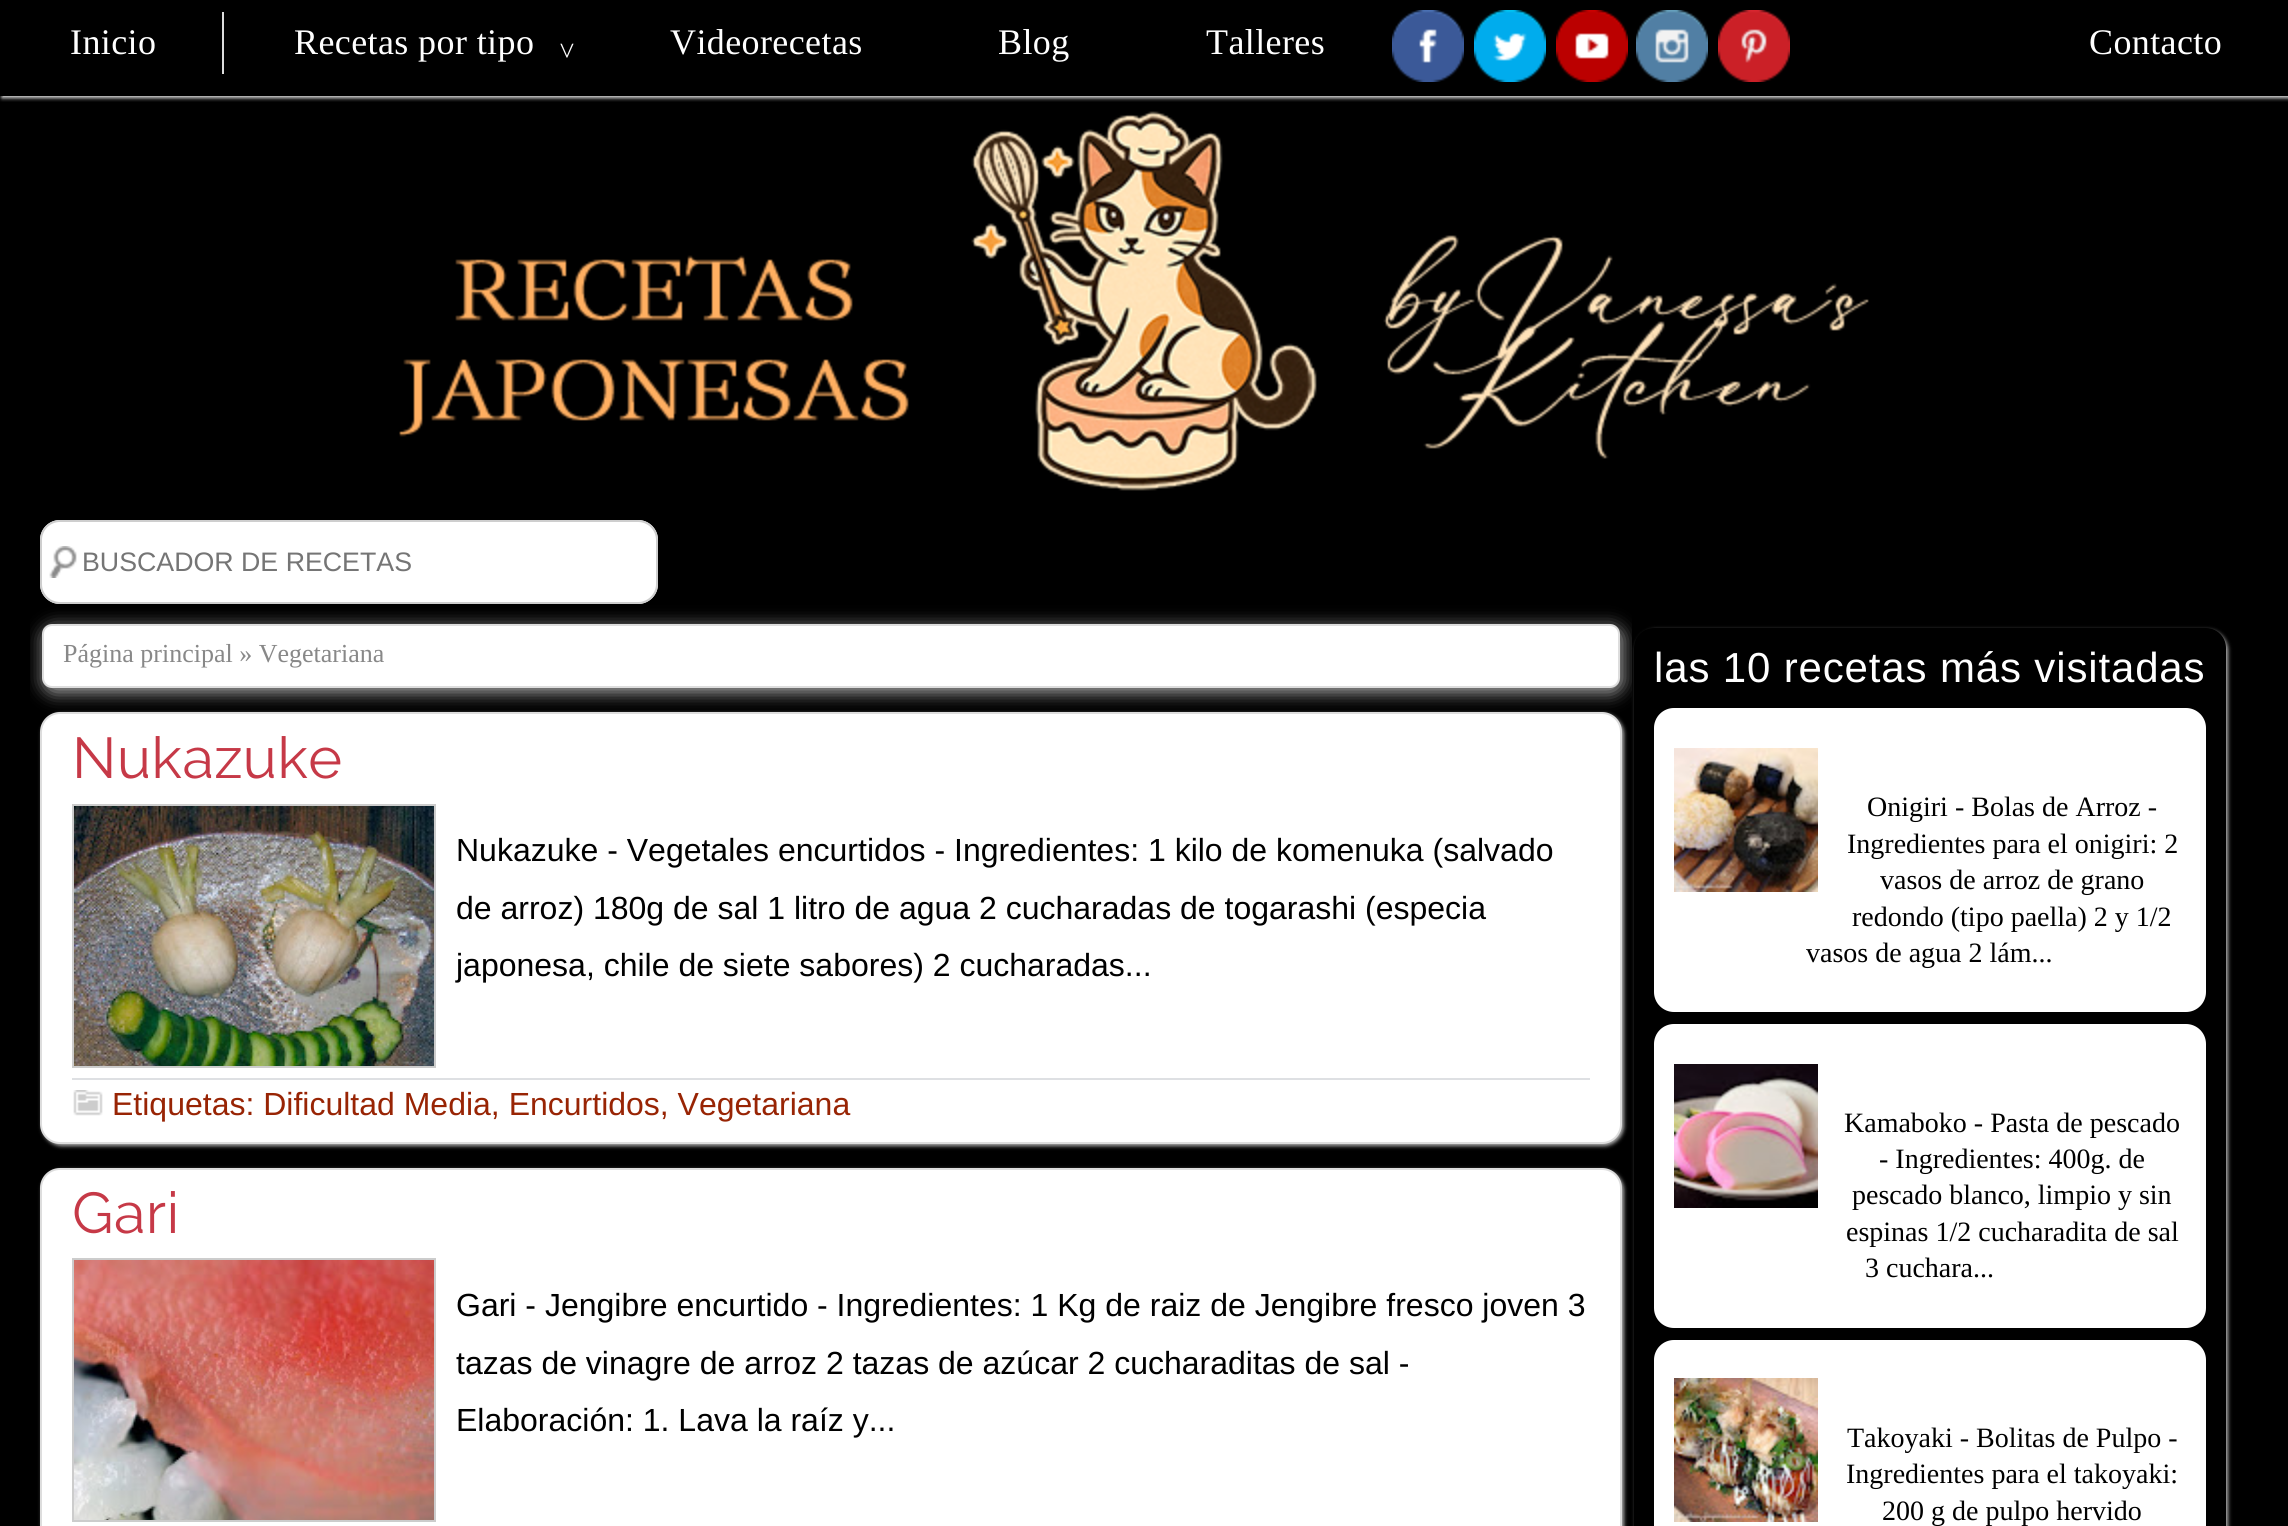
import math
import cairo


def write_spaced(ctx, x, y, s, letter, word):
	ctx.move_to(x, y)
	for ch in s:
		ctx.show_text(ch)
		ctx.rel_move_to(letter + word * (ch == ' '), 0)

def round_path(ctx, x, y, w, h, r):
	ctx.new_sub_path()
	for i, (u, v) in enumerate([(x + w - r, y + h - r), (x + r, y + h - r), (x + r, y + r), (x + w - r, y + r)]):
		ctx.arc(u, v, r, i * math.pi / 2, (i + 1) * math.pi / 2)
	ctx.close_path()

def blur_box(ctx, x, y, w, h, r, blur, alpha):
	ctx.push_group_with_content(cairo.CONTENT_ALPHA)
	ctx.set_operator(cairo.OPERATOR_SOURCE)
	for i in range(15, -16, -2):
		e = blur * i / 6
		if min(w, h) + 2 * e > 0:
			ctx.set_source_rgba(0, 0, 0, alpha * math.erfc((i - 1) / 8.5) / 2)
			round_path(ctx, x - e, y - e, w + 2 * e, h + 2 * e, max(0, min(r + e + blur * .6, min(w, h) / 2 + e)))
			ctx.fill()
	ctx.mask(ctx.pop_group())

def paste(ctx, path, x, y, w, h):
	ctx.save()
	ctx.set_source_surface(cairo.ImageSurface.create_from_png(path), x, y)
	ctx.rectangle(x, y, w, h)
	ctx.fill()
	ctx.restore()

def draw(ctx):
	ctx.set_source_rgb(0, 0, 0)
	ctx.paint()
	ctx.save()
	ctx.rectangle(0, 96, 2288, 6)
	ctx.clip()
	ctx.set_source_rgb(0.882, 0.882, 0.882)
	blur_box(ctx, 2, 2, 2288, 96, 0, 2, 1)
	ctx.restore()
	ctx.set_source_rgb(0.867, 0.867, 0.867)
	ctx.rectangle(222, 12, 2, 62)
	ctx.fill()
	ctx.select_font_face('Liberation Serif')
	ctx.set_font_size(36)
	ctx.set_source_rgb(1, 1, 1)
	write_spaced(ctx, 70, 54, 'Inicio', 0.4, 0)
	write_spaced(ctx, 294, 54, 'Recetas por tipo', 0.4, 0)
	ctx.set_font_size(30)
	ctx.save()
	ctx.translate(574, 38)
	ctx.rotate(180 * math.pi / 180)
	write_spaced(ctx, 0, 0, '^', 0.4, 0)
	ctx.restore()
	ctx.set_font_size(36)
	for x, y, s in [
		(670, 54, 'Videorecetas'),
		(998, 54, 'Blog'),
		(1206, 54, 'Talleres'),
	]:
		write_spaced(ctx, x, y, s, 0.4, 0)
	paste(ctx, 'media/1.png', 1392, 10, 72, 72)
	paste(ctx, 'media/2.png', 1474, 10, 72, 72)
	paste(ctx, 'media/3.png', 1556, 10, 72, 72)
	paste(ctx, 'media/4.png', 1636, 10, 72, 72)
	paste(ctx, 'media/5.png', 1718, 10, 72, 72)
	write_spaced(ctx, 2089, 54, 'Contacto', 0.4, 0)
	paste(ctx, 'media/6.png', 399, 111, 1470, 380)
	ctx.set_source_rgb(0.694, 0.694, 0.694)
	blur_box(ctx, 1636, 630, 592, 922, 20, 2, 1)
	ctx.set_source_rgb(0, 0, 0)
	round_path(ctx, 1634, 628, 592, 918, 20)
	ctx.fill()
	ctx.save()
	ctx.rectangle(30, 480, 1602, 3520)
	ctx.clip()
	ctx.set_source_rgb(0.694, 0.694, 0.694)
	blur_box(ctx, 44, 628, 1578, 64, 10, 9, 1)
	ctx.restore()
	ctx.set_source_rgb(1, 1, 1)
	round_path(ctx, 40, 520, 618, 84, 20)
	ctx.fill()
	paste(ctx, 'media/7.png', 49, 546, 28, 32)
	round_path(ctx, 41, 521, 616, 82, 19)
	ctx.set_source_rgb(0.808, 0.808, 0.808)
	ctx.stroke()
	ctx.select_font_face('Liberation Sans')
	ctx.set_font_size(26.75)
	ctx.set_source_rgb(0.459, 0.459, 0.459)
	ctx.move_to(82, 571)
	ctx.show_text('BUSCADOR DE RECETAS')
	ctx.set_source_rgb(1, 1, 1)
	round_path(ctx, 43, 625, 1576, 62, 9)
	ctx.fill_preserve()
	ctx.set_source_rgb(0.867, 0.867, 0.867)
	ctx.stroke()
	ctx.select_font_face('Liberation Serif')
	ctx.set_font_size(26)
	ctx.set_source_rgb(0.533, 0.533, 0.533)
	ctx.move_to(63, 662)
	ctx.show_text('Página principal » Vegetariana')
	ctx.set_source_rgb(0.694, 0.694, 0.694)
	blur_box(ctx, 42, 714, 1582, 432, 20, 2, 1)
	ctx.set_source_rgb(1, 1, 1)
	round_path(ctx, 41, 713, 1580, 430, 19)
	ctx.fill_preserve()
	ctx.set_source_rgb(0.867, 0.867, 0.867)
	ctx.stroke()
	ctx.select_font_face('Raleway')
	ctx.set_font_size(57.5)
	ctx.set_source_rgb(0.776, 0.224, 0.278)
	write_spaced(ctx, 72, 778, 'Nukazuke', 0.5, 0)
	ctx.rectangle(73, 805, 362, 262)
	ctx.set_source_rgb(0.8, 0.8, 0.8)
	ctx.stroke()
	paste(ctx, 'media/8.png', 74, 806, 360, 260)
	ctx.select_font_face('Liberation Sans')
	ctx.set_font_size(32)
	ctx.set_source_rgb(0, 0, 0)
	for x, y, s in [
		(456, 861, 'Nukazuke - Vegetales encurtidos - Ingredientes: 1 kilo de komenuka (salvado'),
		(456, 919, 'de arroz) 180g de sal 1 litro de agua 2 cucharadas de togarashi (especia'),
		(456, 976, 'japonesa, chile de siete sabores) 2 cucharadas...'),
	]:
		ctx.move_to(x, y)
		ctx.show_text(s)
	ctx.set_source_rgb(0.871, 0.878, 0.89)
	ctx.rectangle(72, 1078, 1518, 2)
	ctx.fill()
	paste(ctx, 'media/9.png', 73, 1090, 30, 26)
	ctx.set_source_rgb(0.596, 0.141, 0.016)
	ctx.move_to(112, 1115)
	ctx.show_text('Etiquetas: Dificultad Media, Encurtidos, Vegetariana')
	ctx.set_source_rgb(0.694, 0.694, 0.694)
	blur_box(ctx, 42, 1170, 1582, 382, 20, 2, 1)
	ctx.set_source_rgb(1, 1, 1)
	round_path(ctx, 41, 1169, 1580, 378, 19)
	ctx.fill_preserve()
	ctx.set_source_rgb(0.867, 0.867, 0.867)
	ctx.stroke()
	ctx.select_font_face('Raleway')
	ctx.set_font_size(57.5)
	ctx.set_source_rgb(0.776, 0.224, 0.278)
	write_spaced(ctx, 72, 1233, 'Gari', 0.5, 0)
	ctx.rectangle(73, 1259, 362, 262)
	ctx.set_source_rgb(0.8, 0.8, 0.8)
	ctx.stroke()
	paste(ctx, 'media/10.png', 74, 1260, 360, 260)
	ctx.select_font_face('Liberation Sans')
	ctx.set_font_size(32)
	ctx.set_source_rgb(0, 0, 0)
	for x, y, s in [
		(456, 1316, 'Gari - Jengibre encurtido - Ingredientes: 1 Kg de raiz de Jengibre fresco joven 3'),
		(456, 1374, 'tazas de vinagre de arroz 2 tazas de azúcar 2 cucharaditas de sal -'),
		(456, 1431, 'Elaboración: 1. Lava la raíz y...'),
	]:
		ctx.move_to(x, y)
		ctx.show_text(s)
	ctx.set_font_size(42)
	ctx.set_source_rgb(1, 1, 1)
	write_spaced(ctx, 1654, 682, 'las 10 recetas más visitadas', 0.85, 0)
	round_path(ctx, 1654, 708, 552, 304, 20)
	ctx.fill()
	paste(ctx, 'media/11.png', 1674, 748, 144, 144)
	ctx.select_font_face('Liberation Serif')
	ctx.set_font_size(28)
	ctx.set_source_rgb(0, 0, 0)
	for x, y, s in [
		(1867, 816, 'Onigiri - Bolas de Arroz -'),
		(1847, 853, 'Ingredientes para el onigiri: 2'),
		(1880, 889, 'vasos de arroz de grano'),
		(1852, 926, 'redondo (tipo paella) 2 y 1/2'),
		(1806, 962, 'vasos de agua 2 lám...'),
	]:
		ctx.move_to(x, y)
		ctx.show_text(s)
	ctx.set_source_rgb(1, 1, 1)
	round_path(ctx, 1654, 1024, 552, 304, 20)
	ctx.fill()
	paste(ctx, 'media/12.png', 1674, 1064, 144, 144)
	ctx.set_source_rgb(0, 0, 0)
	for x, y, s in [
		(1844, 1132, 'Kamaboko - Pasta de pescado'),
		(1879, 1168, '- Ingredientes: 400g. de'),
		(1852, 1204, 'pescado blanco, limpio y sin'),
		(1846, 1241, 'espinas 1/2 cucharadita de sal'),
		(1865, 1277, '3 cuchara...'),
	]:
		ctx.move_to(x, y)
		ctx.show_text(s)
	ctx.set_source_rgb(1, 1, 1)
	round_path(ctx, 1654, 1340, 552, 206, 20)
	ctx.fill()
	paste(ctx, 'media/13.png', 1674, 1378, 144, 144)
	ctx.set_source_rgb(0, 0, 0)
	for x, y, s in [
		(1847, 1447, 'Takoyaki - Bolitas de Pulpo -'),
		(1846, 1483, 'Ingredientes para el takoyaki:'),
		(1882, 1520, '200 g de pulpo hervido'),
	]:
		ctx.move_to(x, y)
		ctx.show_text(s)


surface = cairo.ImageSurface(cairo.FORMAT_RGB24, 2288, 1526)
ctx = cairo.Context(surface)
options = cairo.FontOptions()
options.set_hint_metrics(cairo.HINT_METRICS_OFF)
options.set_hint_style(cairo.HINT_STYLE_NONE)
ctx.set_font_options(options)
ctx.set_miter_limit(4)
draw(ctx)
surface.write_to_png('image.png')
